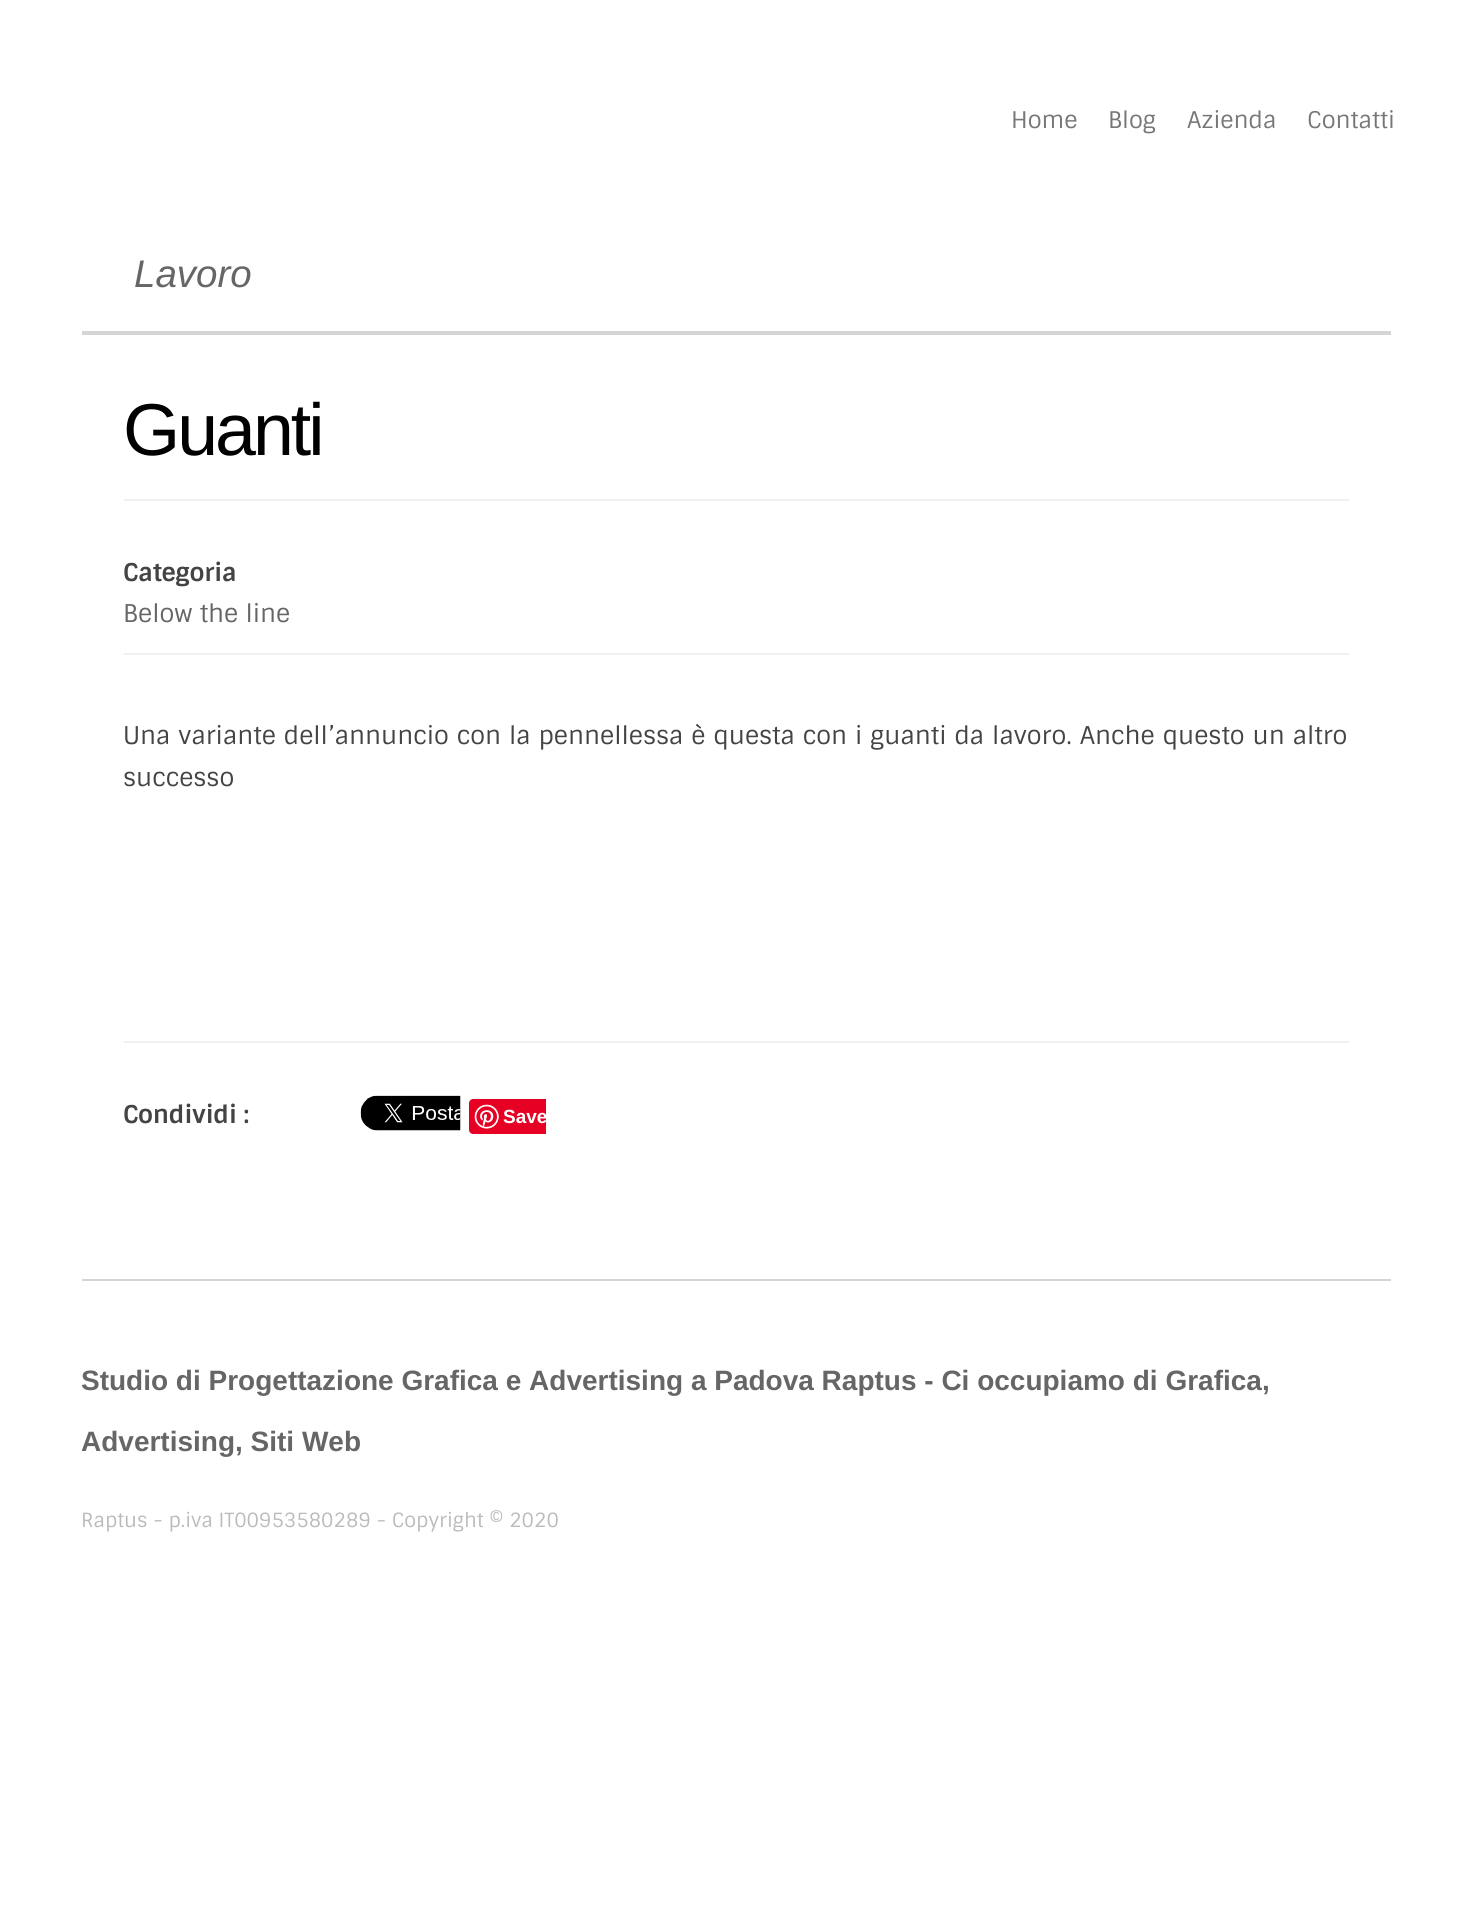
import math
import cairo


def write_spaced(ctx, x, y, s, letter, word):
	ctx.move_to(x, y)
	for ch in s:
		ctx.show_text(ch)
		ctx.rel_move_to(letter + word * (ch == ' '), 0)

def paste(ctx, path, x, y, w, h):
	ctx.save()
	ctx.set_source_surface(cairo.ImageSurface.create_from_png(path), x, y)
	ctx.rectangle(x, y, w, h)
	ctx.fill()
	ctx.restore()

def draw(ctx):
	ctx.set_source_rgb(1, 1, 1)
	ctx.paint()
	ctx.select_font_face('Sintony')
	ctx.set_font_size(23)
	ctx.set_source_rgb(0.467, 0.467, 0.467)
	for x, y, s in [
		(1011, 128, 'Home'),
		(1108, 128, 'Blog'),
		(1187, 128, 'Azienda'),
		(1307, 128, 'Contatti'),
	]:
		ctx.move_to(x, y)
		ctx.show_text(s)
	ctx.set_source_rgb(0.835, 0.835, 0.835)
	ctx.rectangle(82, 331, 1309, 4)
	ctx.fill()
	ctx.select_font_face('Liberation Sans', cairo.FONT_SLANT_ITALIC)
	ctx.set_font_size(38.5)
	ctx.set_source_rgb(0.4, 0.4, 0.4)
	ctx.move_to(134, 287)
	ctx.show_text('Lavoro')
	ctx.select_font_face('Liberation Sans')
	ctx.set_font_size(73.5)
	ctx.set_source_rgb(0, 0, 0)
	write_spaced(ctx, 123, 455, 'Guanti', -3, 0)
	ctx.set_source_rgb(0.941, 0.941, 0.941)
	ctx.rectangle(124, 499, 1225, 2)
	ctx.fill()
	ctx.select_font_face('Sintony', cairo.FONT_SLANT_NORMAL, cairo.FONT_WEIGHT_BOLD)
	ctx.set_font_size(24.5)
	ctx.set_source_rgb(0.267, 0.267, 0.267)
	ctx.move_to(123, 581)
	ctx.show_text('Categoria')
	ctx.select_font_face('Sintony')
	ctx.set_source_rgb(0.4, 0.4, 0.4)
	ctx.move_to(123, 622)
	ctx.show_text('Below the line')
	ctx.set_source_rgb(0.941, 0.941, 0.941)
	ctx.rectangle(124, 653, 1225, 2)
	ctx.fill()
	ctx.set_source_rgb(0.267, 0.267, 0.267)
	write_spaced(ctx, 123, 744, 'Una variante dell’annuncio con la pennellessa è questa con i guanti da lavoro. Anche questo un altro', 0, 0.8)
	ctx.move_to(123, 786)
	ctx.show_text('successo')
	ctx.set_source_rgb(0.941, 0.941, 0.941)
	ctx.rectangle(124, 1041, 1225, 2)
	ctx.fill()
	ctx.select_font_face('Sintony', cairo.FONT_SLANT_NORMAL, cairo.FONT_WEIGHT_BOLD)
	ctx.set_source_rgb(0.267, 0.267, 0.267)
	ctx.move_to(123, 1123)
	ctx.show_text('Condividi :')
	paste(ctx, 'media/1.png', 360, 1095, 101, 36)
	ctx.set_source_rgb(0.902, 0, 0.137)
	ctx.new_path()
	ctx.move_to(473, 1099)
	ctx.line_to(546, 1099)
	ctx.line_to(546, 1134)
	ctx.line_to(473, 1134)
	ctx.curve_to(471, 1134, 469, 1132, 469, 1130)
	ctx.line_to(469, 1103)
	ctx.curve_to(469, 1101, 471, 1099, 473, 1099)
	ctx.close_path()
	ctx.fill()
	paste(ctx, 'media/2.png', 474, 1104, 25, 25)
	ctx.save()
	ctx.rectangle(469, 1096, 77, 42)
	ctx.clip()
	ctx.select_font_face('Liberation Sans', cairo.FONT_SLANT_NORMAL, cairo.FONT_WEIGHT_BOLD)
	ctx.set_font_size(19)
	ctx.set_source_rgb(1, 1, 1)
	ctx.move_to(503, 1123)
	ctx.show_text('Save')
	ctx.restore()
	ctx.set_source_rgb(0.835, 0.835, 0.835)
	ctx.rectangle(82, 1279, 1309, 2)
	ctx.fill()
	ctx.select_font_face('Liberation Sans', cairo.FONT_SLANT_NORMAL, cairo.FONT_WEIGHT_BOLD)
	ctx.set_font_size(28)
	ctx.set_source_rgb(0.4, 0.4, 0.4)
	ctx.move_to(81, 1390)
	ctx.show_text('Studio di Progettazione Grafica e Advertising a Padova Raptus - Ci occupiamo di Grafica,')
	ctx.move_to(81, 1451)
	ctx.show_text('Advertising, Siti Web')
	ctx.select_font_face('Sintony')
	ctx.set_font_size(19.6)
	ctx.set_source_rgb(0.733, 0.733, 0.733)
	ctx.move_to(81, 1527)
	ctx.show_text('Raptus - p.iva IT00953580289 - Copyright © 2020')


surface = cairo.ImageSurface(cairo.FORMAT_RGB24, 1471, 1931)
ctx = cairo.Context(surface)
options = cairo.FontOptions()
options.set_hint_metrics(cairo.HINT_METRICS_OFF)
options.set_hint_style(cairo.HINT_STYLE_NONE)
ctx.set_font_options(options)
ctx.set_miter_limit(4)
draw(ctx)
surface.write_to_png('image.png')
